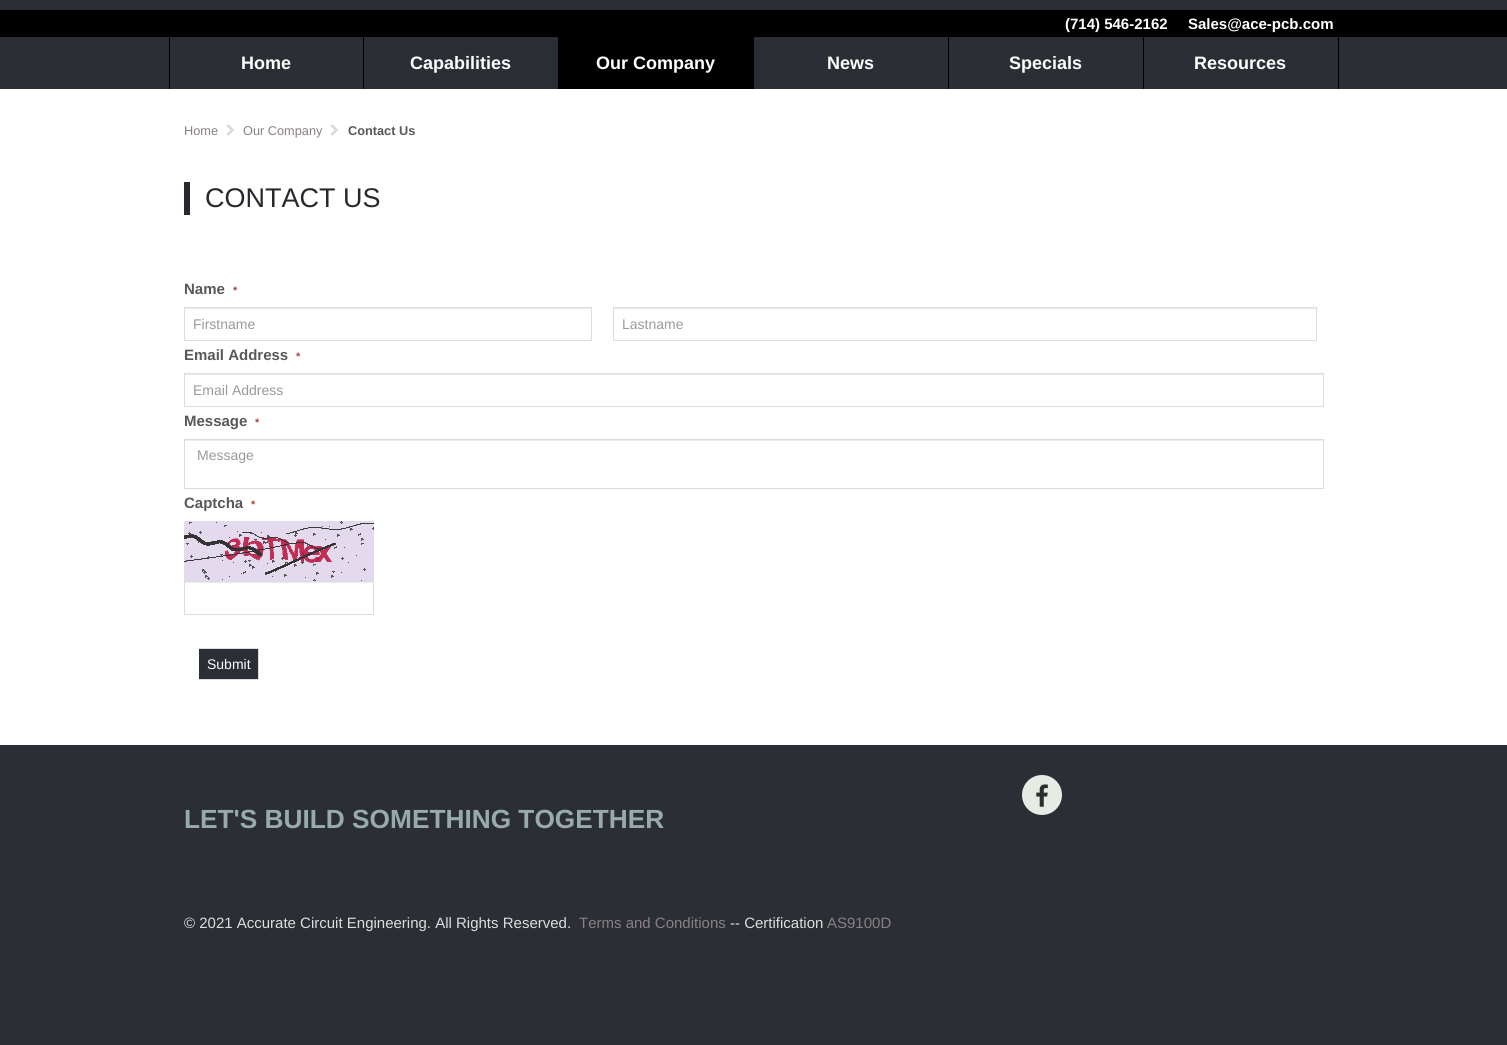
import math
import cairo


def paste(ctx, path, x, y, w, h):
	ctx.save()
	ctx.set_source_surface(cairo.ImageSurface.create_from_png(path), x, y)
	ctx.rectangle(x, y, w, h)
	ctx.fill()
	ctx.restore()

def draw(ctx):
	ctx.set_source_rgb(0.169, 0.18, 0.204)
	ctx.paint()
	ctx.set_source_rgb(0, 0, 0)
	ctx.rectangle(0, 10, 1507, 27)
	ctx.fill()
	ctx.select_font_face('Liberation Sans', cairo.FONT_SLANT_NORMAL, cairo.FONT_WEIGHT_BOLD)
	ctx.set_font_size(15)
	ctx.set_source_rgb(1, 1, 1)
	ctx.move_to(1065, 29)
	ctx.show_text('(714) 546-2162')
	ctx.move_to(1188, 29)
	ctx.show_text('Sales@ace-pcb.com')
	ctx.set_source_rgb(0, 0, 0)
	ctx.rectangle(363, 37, 1, 52)
	ctx.fill()
	ctx.rectangle(169, 37, 1, 52)
	ctx.fill()
	ctx.set_font_size(18)
	ctx.set_source_rgb(1, 1, 1)
	ctx.move_to(241, 69)
	ctx.show_text('Home')
	ctx.set_source_rgb(0, 0, 0)
	ctx.rectangle(558, 37, 1, 52)
	ctx.fill()
	ctx.set_source_rgb(1, 1, 1)
	ctx.move_to(410, 69)
	ctx.show_text('Capabilities')
	ctx.set_source_rgb(0, 0, 0)
	ctx.rectangle(559, 37, 195, 52)
	ctx.fill()
	ctx.set_source_rgb(1, 1, 1)
	ctx.move_to(596, 69)
	ctx.show_text('Our Company')
	ctx.set_source_rgb(0, 0, 0)
	ctx.rectangle(948, 37, 1, 52)
	ctx.fill()
	ctx.set_source_rgb(1, 1, 1)
	ctx.move_to(827, 69)
	ctx.show_text('News')
	ctx.set_source_rgb(0, 0, 0)
	ctx.rectangle(1143, 37, 1, 52)
	ctx.fill()
	ctx.set_source_rgb(1, 1, 1)
	ctx.move_to(1009, 69)
	ctx.show_text('Specials')
	ctx.set_source_rgb(0, 0, 0)
	ctx.rectangle(1338, 37, 1, 52)
	ctx.fill()
	ctx.set_source_rgb(1, 1, 1)
	ctx.move_to(1194, 69)
	ctx.show_text('Resources')
	ctx.rectangle(0, 89, 1507, 656)
	ctx.fill()
	ctx.select_font_face('Liberation Sans')
	ctx.set_font_size(12.75)
	ctx.set_source_rgb(0.533, 0.502, 0.518)
	ctx.move_to(184, 135)
	ctx.show_text('Home')
	paste(ctx, 'media/1.png', 226, 124, 8, 12)
	ctx.move_to(243, 135)
	ctx.show_text('Our Company')
	paste(ctx, 'media/1.png', 330, 124, 8, 12)
	ctx.select_font_face('Liberation Sans', cairo.FONT_SLANT_NORMAL, cairo.FONT_WEIGHT_BOLD)
	ctx.set_source_rgb(0.349, 0.345, 0.341)
	ctx.move_to(348, 135)
	ctx.show_text('Contact Us')
	ctx.set_source_rgb(0.157, 0.157, 0.18)
	ctx.rectangle(184, 182, 6, 33)
	ctx.fill()
	ctx.select_font_face('Liberation Sans')
	ctx.set_font_size(27)
	ctx.move_to(205, 207)
	ctx.show_text('CONTACT US')
	ctx.select_font_face('Liberation Sans', cairo.FONT_SLANT_NORMAL, cairo.FONT_WEIGHT_BOLD)
	ctx.set_font_size(15)
	ctx.set_source_rgb(0.349, 0.345, 0.341)
	ctx.move_to(184, 294)
	ctx.show_text('Name')
	ctx.set_font_size(11)
	ctx.set_source_rgb(0.663, 0.267, 0.259)
	ctx.move_to(233, 294)
	ctx.show_text('*')
	ctx.set_source_rgb(0.925, 0.925, 0.925)
	ctx.rectangle(185, 308, 406, 1)
	ctx.fill()
	ctx.rectangle(184.5, 307.5, 407, 33)
	ctx.set_source_rgb(0.867, 0.867, 0.867)
	ctx.set_line_width(1)
	ctx.stroke()
	ctx.select_font_face('Liberation Sans')
	ctx.set_font_size(14)
	ctx.set_source_rgb(0.6, 0.6, 0.6)
	ctx.move_to(193, 329)
	ctx.show_text('Firstname')
	ctx.set_source_rgb(0.925, 0.925, 0.925)
	ctx.rectangle(614, 308, 702, 1)
	ctx.fill()
	ctx.rectangle(613.5, 307.5, 703, 33)
	ctx.set_source_rgb(0.867, 0.867, 0.867)
	ctx.stroke()
	ctx.set_source_rgb(0.6, 0.6, 0.6)
	ctx.move_to(622, 329)
	ctx.show_text('Lastname')
	ctx.select_font_face('Liberation Sans', cairo.FONT_SLANT_NORMAL, cairo.FONT_WEIGHT_BOLD)
	ctx.set_font_size(15)
	ctx.set_source_rgb(0.349, 0.345, 0.341)
	ctx.move_to(184, 360)
	ctx.show_text('Email Address')
	ctx.set_font_size(11)
	ctx.set_source_rgb(0.663, 0.267, 0.259)
	ctx.move_to(296, 360)
	ctx.show_text('*')
	ctx.set_source_rgb(0.925, 0.925, 0.925)
	ctx.rectangle(185, 374, 1138, 1)
	ctx.fill()
	ctx.rectangle(184.5, 373.5, 1139, 33)
	ctx.set_source_rgb(0.867, 0.867, 0.867)
	ctx.stroke()
	ctx.select_font_face('Liberation Sans')
	ctx.set_font_size(14)
	ctx.set_source_rgb(0.6, 0.6, 0.6)
	ctx.move_to(193, 395)
	ctx.show_text('Email Address')
	ctx.select_font_face('Liberation Sans', cairo.FONT_SLANT_NORMAL, cairo.FONT_WEIGHT_BOLD)
	ctx.set_font_size(15)
	ctx.set_source_rgb(0.349, 0.345, 0.341)
	ctx.move_to(184, 426)
	ctx.show_text('Message')
	ctx.set_font_size(11)
	ctx.set_source_rgb(0.663, 0.267, 0.259)
	ctx.move_to(255, 426)
	ctx.show_text('*')
	ctx.set_source_rgb(0.925, 0.925, 0.925)
	ctx.rectangle(185, 440, 1138, 1)
	ctx.fill()
	ctx.rectangle(184.5, 439.5, 1139, 49)
	ctx.set_source_rgb(0.867, 0.867, 0.867)
	ctx.stroke()
	ctx.select_font_face('Liberation Sans')
	ctx.set_font_size(14)
	ctx.set_source_rgb(0.6, 0.6, 0.6)
	ctx.move_to(197, 460)
	ctx.show_text('Message')
	ctx.select_font_face('Liberation Sans', cairo.FONT_SLANT_NORMAL, cairo.FONT_WEIGHT_BOLD)
	ctx.set_font_size(15)
	ctx.set_source_rgb(0.349, 0.345, 0.341)
	ctx.move_to(184, 508)
	ctx.show_text('Captcha')
	ctx.set_font_size(11)
	ctx.set_source_rgb(0.663, 0.267, 0.259)
	ctx.move_to(251, 508)
	ctx.show_text('*')
	paste(ctx, 'media/2.png', 184, 521, 190, 60)
	ctx.set_source_rgb(0.925, 0.925, 0.925)
	ctx.rectangle(185, 582, 188, 1)
	ctx.fill()
	ctx.rectangle(184.5, 581.5, 189, 33)
	ctx.set_source_rgb(0.867, 0.867, 0.867)
	ctx.stroke()
	ctx.set_source_rgb(0.169, 0.18, 0.204)
	ctx.rectangle(199, 649, 59, 30)
	ctx.fill()
	ctx.set_source_rgb(0.867, 0.867, 0.867)
	ctx.rectangle(199, 648, 60, 1)
	ctx.rectangle(258, 648, 1, 32)
	ctx.rectangle(199, 679, 60, 1)
	ctx.fill()
	ctx.select_font_face('Liberation Sans')
	ctx.set_font_size(14)
	ctx.set_source_rgb(1, 1, 1)
	ctx.move_to(207, 669)
	ctx.show_text('Submit')
	ctx.set_source_rgb(0.902, 0.918, 0.89)
	ctx.new_path()
	ctx.arc(1042, 795, 20, 0, 2 * math.pi)
	ctx.fill()
	paste(ctx, 'media/3.png', 1036, 784, 12, 23)
	ctx.select_font_face('Liberation Sans', cairo.FONT_SLANT_NORMAL, cairo.FONT_WEIGHT_BOLD)
	ctx.set_font_size(26.25)
	ctx.set_source_rgb(0.592, 0.671, 0.675)
	ctx.move_to(184, 828)
	ctx.show_text('LET\'S BUILD SOMETHING TOGETHER')
	ctx.select_font_face('Liberation Sans')
	ctx.set_font_size(15)
	ctx.set_source_rgb(0.863, 0.867, 0.867)
	ctx.move_to(184, 928)
	ctx.show_text('© 2021 Accurate Circuit Engineering. All Rights Reserved.')
	ctx.set_source_rgb(0.533, 0.502, 0.518)
	ctx.move_to(579, 928)
	ctx.show_text('Terms and Conditions')
	ctx.set_source_rgb(0.863, 0.867, 0.867)
	ctx.move_to(730, 928)
	ctx.show_text('-- Certification')
	ctx.set_source_rgb(0.533, 0.502, 0.518)
	ctx.move_to(827, 928)
	ctx.show_text('AS9100D')


surface = cairo.ImageSurface(cairo.FORMAT_RGB24, 1507, 1045)
ctx = cairo.Context(surface)
options = cairo.FontOptions()
options.set_hint_metrics(cairo.HINT_METRICS_OFF)
options.set_hint_style(cairo.HINT_STYLE_NONE)
ctx.set_font_options(options)
ctx.set_miter_limit(4)
draw(ctx)
surface.write_to_png('image.png')
